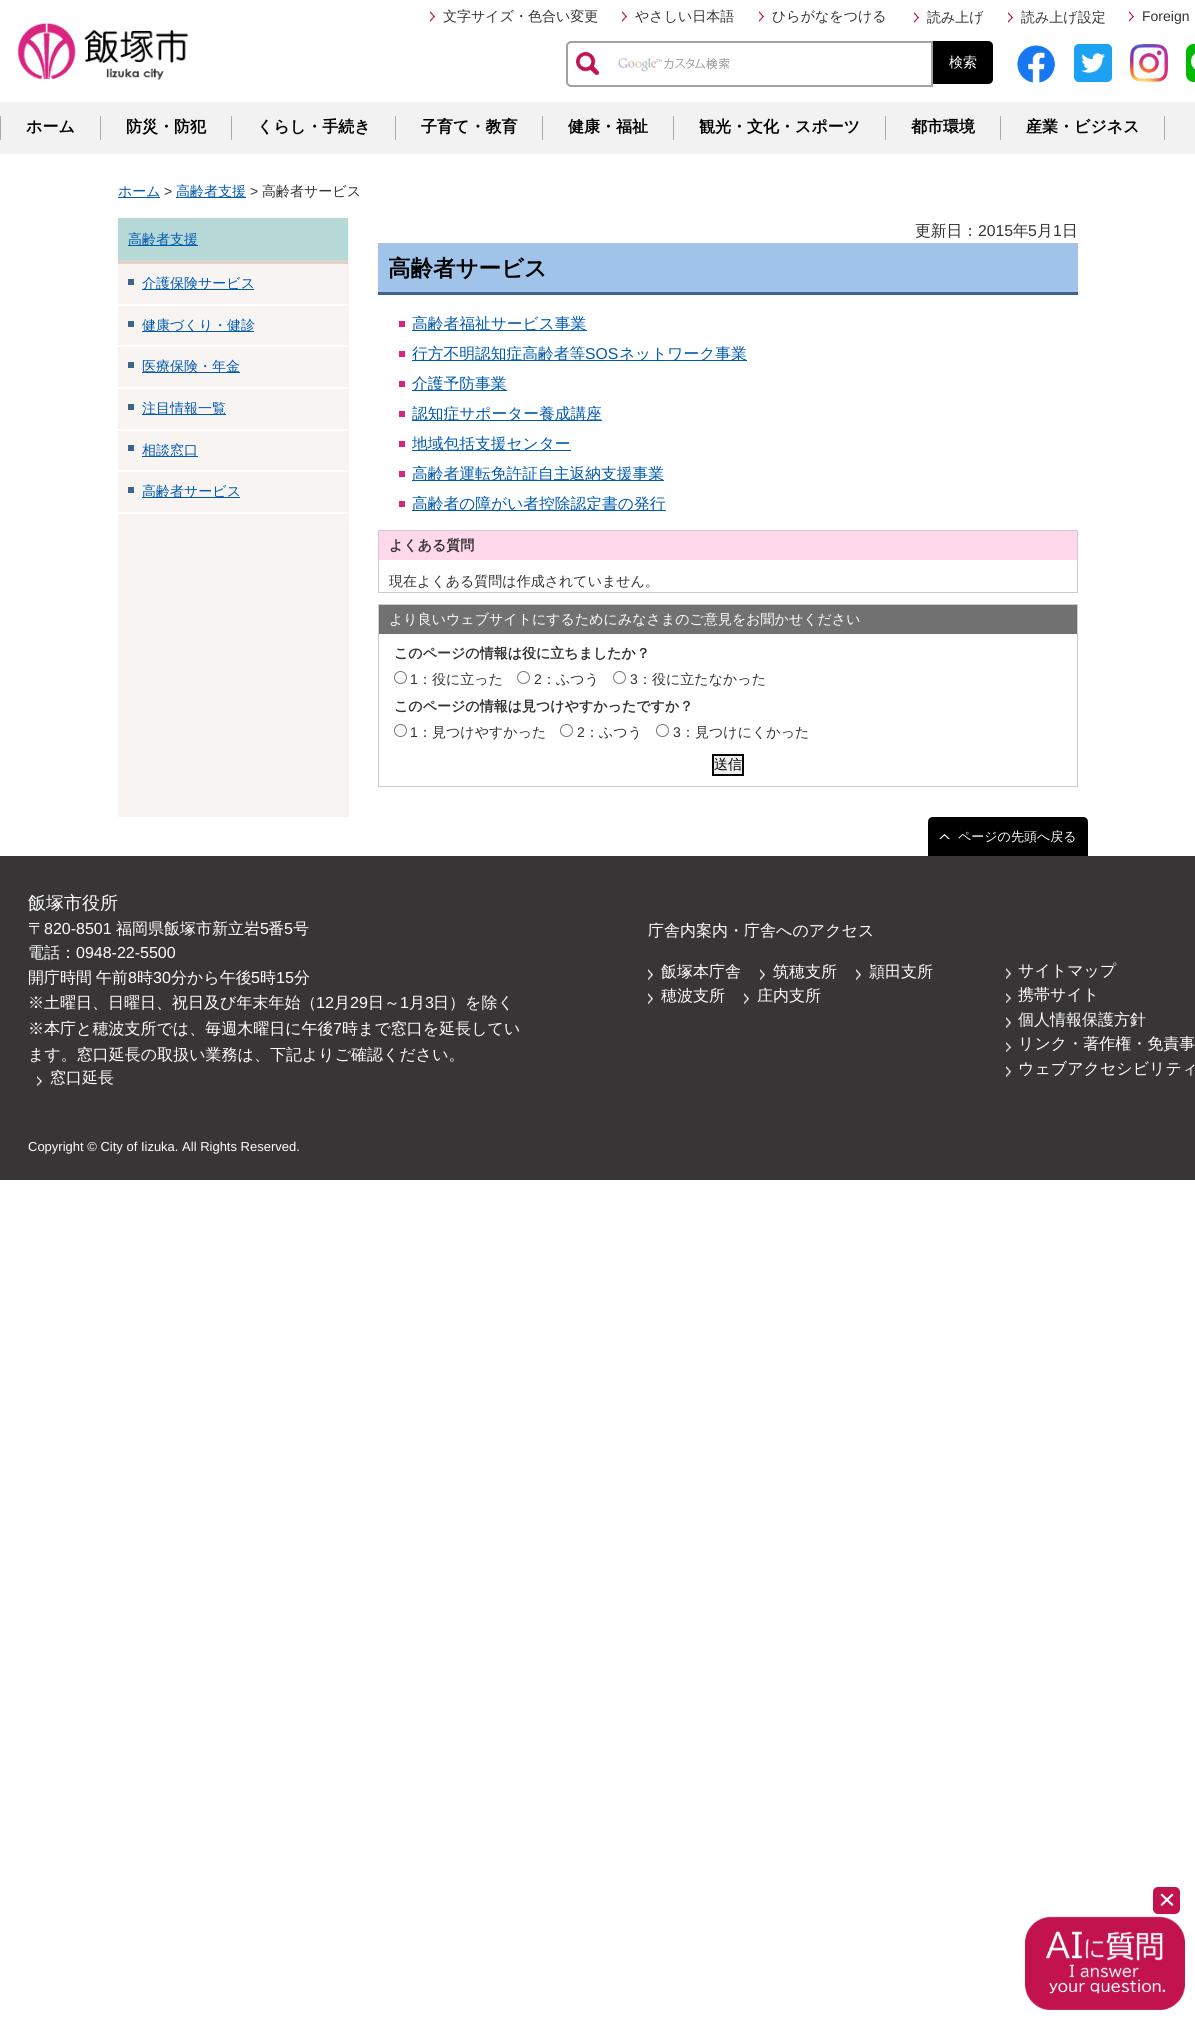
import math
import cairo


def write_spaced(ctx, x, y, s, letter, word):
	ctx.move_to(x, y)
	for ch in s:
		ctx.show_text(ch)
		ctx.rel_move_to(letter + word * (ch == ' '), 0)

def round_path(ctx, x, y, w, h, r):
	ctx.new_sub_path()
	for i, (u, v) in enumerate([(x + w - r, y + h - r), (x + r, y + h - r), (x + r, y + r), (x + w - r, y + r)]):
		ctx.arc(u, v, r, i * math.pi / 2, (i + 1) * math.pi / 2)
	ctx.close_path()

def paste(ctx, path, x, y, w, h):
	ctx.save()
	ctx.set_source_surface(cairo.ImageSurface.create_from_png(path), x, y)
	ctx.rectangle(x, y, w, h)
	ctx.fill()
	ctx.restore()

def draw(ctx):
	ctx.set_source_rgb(1, 1, 1)
	ctx.paint()
	paste(ctx, 'media/1.png', 10, 18, 178, 62)
	paste(ctx, 'media/2.png', 430, 11, 5, 11)
	ctx.select_font_face('WenQuanYi Zen Hei Medium')
	ctx.set_font_size(14)
	ctx.set_source_rgb(0.2, 0.2, 0.2)
	ctx.move_to(443, 21)
	ctx.show_text('文字サイズ・色合い変更')
	paste(ctx, 'media/2.png', 622, 11, 5, 11)
	ctx.move_to(635, 21)
	ctx.show_text('やさしい日本語')
	paste(ctx, 'media/2.png', 759, 11, 5, 11)
	ctx.move_to(772, 21)
	ctx.show_text('ひらがなをつける')
	paste(ctx, 'media/2.png', 914, 12, 5, 11)
	ctx.move_to(927, 22)
	ctx.show_text('読み上げ')
	paste(ctx, 'media/2.png', 1008, 12, 5, 11)
	ctx.move_to(1021, 22)
	ctx.show_text('読み上げ設定')
	paste(ctx, 'media/2.png', 1129, 11, 5, 11)
	ctx.select_font_face('Liberation Sans')
	ctx.move_to(1142, 21)
	ctx.show_text('Foreign')
	paste(ctx, 'media/4.png', 618, 58, 112, 14)
	ctx.new_path()
	ctx.move_to(571, 42)
	ctx.line_to(932, 42)
	ctx.line_to(932, 86)
	ctx.line_to(571, 86)
	ctx.curve_to(569, 86, 567, 84, 567, 82)
	ctx.line_to(567, 46)
	ctx.curve_to(567, 44, 569, 42, 571, 42)
	ctx.close_path()
	ctx.set_source_rgb(0.631, 0.631, 0.631)
	ctx.stroke()
	paste(ctx, 'media/3.png', 576, 52, 23, 23)
	ctx.set_source_rgb(0, 0, 0)
	ctx.new_path()
	ctx.move_to(933, 41)
	ctx.line_to(988, 41)
	ctx.curve_to(991, 41, 993, 43, 993, 46)
	ctx.line_to(993, 79)
	ctx.curve_to(993, 82, 991, 84, 988, 84)
	ctx.line_to(933, 84)
	ctx.close_path()
	ctx.fill()
	ctx.select_font_face('WenQuanYi Zen Hei Medium')
	ctx.set_source_rgb(1, 1, 1)
	ctx.move_to(949, 67)
	ctx.show_text('検索')
	paste(ctx, 'media/5.png', 1017, 45, 38, 38)
	paste(ctx, 'media/6.png', 1074, 44, 38, 38)
	paste(ctx, 'media/7.png', 1130, 44, 38, 38)
	paste(ctx, 'media/8.png', 1186, 44, 9, 38)
	ctx.set_source_rgb(0.949, 0.949, 0.949)
	ctx.rectangle(0, 102, 1195, 52)
	ctx.fill()
	ctx.set_source_rgb(0.667, 0.667, 0.667)
	ctx.rectangle(0, 116, 1, 24)
	ctx.fill()
	ctx.select_font_face('WenQuanYi Zen Hei', cairo.FONT_SLANT_NORMAL, cairo.FONT_WEIGHT_BOLD)
	ctx.set_font_size(16)
	ctx.set_source_rgb(0, 0, 0)
	ctx.move_to(26, 132)
	ctx.show_text('ホーム')
	ctx.set_source_rgb(0.667, 0.667, 0.667)
	ctx.rectangle(100, 116, 1, 24)
	ctx.fill()
	ctx.set_source_rgb(0, 0, 0)
	ctx.move_to(126, 132)
	ctx.show_text('防災・防犯')
	ctx.set_source_rgb(0.667, 0.667, 0.667)
	ctx.rectangle(231, 116, 1, 24)
	ctx.fill()
	ctx.set_source_rgb(0, 0, 0)
	ctx.move_to(257, 132)
	ctx.show_text('くらし・手続き')
	ctx.set_source_rgb(0.667, 0.667, 0.667)
	ctx.rectangle(395, 116, 1, 24)
	ctx.fill()
	ctx.set_source_rgb(0, 0, 0)
	ctx.move_to(421, 132)
	ctx.show_text('子育て・教育')
	ctx.set_source_rgb(0.667, 0.667, 0.667)
	ctx.rectangle(542, 116, 1, 24)
	ctx.fill()
	ctx.set_source_rgb(0, 0, 0)
	ctx.move_to(568, 132)
	ctx.show_text('健康・福祉')
	ctx.set_source_rgb(0.667, 0.667, 0.667)
	ctx.rectangle(673, 116, 1, 24)
	ctx.fill()
	ctx.set_source_rgb(0, 0, 0)
	ctx.move_to(699, 132)
	ctx.show_text('観光・文化・スポーツ')
	ctx.set_source_rgb(0.667, 0.667, 0.667)
	ctx.rectangle(885, 116, 1, 24)
	ctx.fill()
	ctx.set_source_rgb(0, 0, 0)
	ctx.move_to(911, 132)
	ctx.show_text('都市環境')
	ctx.set_source_rgb(0.667, 0.667, 0.667)
	ctx.rectangle(1000, 116, 1, 24)
	ctx.fill()
	ctx.set_source_rgb(0, 0, 0)
	ctx.move_to(1026, 132)
	ctx.show_text('産業・ビジネス')
	ctx.set_source_rgb(0.667, 0.667, 0.667)
	ctx.rectangle(1164, 116, 1, 24)
	ctx.fill()
	ctx.set_source_rgb(0, 0.349, 0.698)
	ctx.rectangle(118, 197, 42, 1)
	ctx.fill()
	ctx.select_font_face('WenQuanYi Zen Hei Medium')
	ctx.set_font_size(14)
	ctx.move_to(118, 196)
	ctx.show_text('ホーム')
	ctx.select_font_face('Liberation Sans')
	ctx.set_source_rgb(0.2, 0.2, 0.2)
	ctx.move_to(164, 196)
	ctx.show_text('>')
	ctx.set_source_rgb(0, 0.349, 0.698)
	ctx.rectangle(176, 197, 70, 1)
	ctx.fill()
	ctx.select_font_face('WenQuanYi Zen Hei Medium')
	ctx.move_to(176, 196)
	ctx.show_text('高齢者支援')
	ctx.select_font_face('Liberation Sans')
	ctx.set_source_rgb(0.2, 0.2, 0.2)
	ctx.move_to(250, 196)
	ctx.show_text('>')
	ctx.select_font_face('WenQuanYi Zen Hei Medium')
	ctx.move_to(262, 196)
	ctx.show_text('高齢者サービス')
	ctx.set_source_rgb(0.969, 0.957, 0.949)
	ctx.rectangle(118, 218, 231, 599)
	ctx.fill()
	ctx.set_source_rgb(0.714, 0.851, 0.847)
	ctx.rectangle(118, 218, 230, 42)
	ctx.fill()
	ctx.set_source_rgb(0.871, 0.824, 0.796)
	ctx.rectangle(118, 260, 230, 4)
	ctx.fill()
	ctx.set_source_rgb(0, 0.349, 0.698)
	ctx.rectangle(128, 245, 70, 1)
	ctx.fill()
	ctx.move_to(128, 244)
	ctx.show_text('高齢者支援')
	ctx.set_source_rgb(0.239, 0.396, 0.545)
	ctx.rectangle(128, 279, 6, 6)
	ctx.fill()
	ctx.set_source_rgb(1, 1, 1)
	ctx.rectangle(118, 304, 230, 2)
	ctx.fill()
	ctx.set_source_rgb(0, 0.349, 0.698)
	ctx.rectangle(142, 289, 112, 1)
	ctx.fill()
	ctx.move_to(142, 288)
	ctx.show_text('介護保険サービス')
	ctx.set_source_rgb(0.239, 0.396, 0.545)
	ctx.rectangle(128, 321, 6, 6)
	ctx.fill()
	ctx.set_source_rgb(1, 1, 1)
	ctx.rectangle(118, 345, 230, 2)
	ctx.fill()
	ctx.set_source_rgb(0, 0.349, 0.698)
	ctx.rectangle(142, 331, 112, 1)
	ctx.fill()
	ctx.move_to(142, 330)
	ctx.show_text('健康づくり・健診')
	ctx.set_source_rgb(0.239, 0.396, 0.545)
	ctx.rectangle(128, 362, 6, 6)
	ctx.fill()
	ctx.set_source_rgb(1, 1, 1)
	ctx.rectangle(118, 387, 230, 2)
	ctx.fill()
	ctx.set_source_rgb(0, 0.349, 0.698)
	ctx.rectangle(142, 372, 98, 1)
	ctx.fill()
	ctx.move_to(142, 371)
	ctx.show_text('医療保険・年金')
	ctx.set_source_rgb(0.239, 0.396, 0.545)
	ctx.rectangle(128, 404, 6, 6)
	ctx.fill()
	ctx.set_source_rgb(1, 1, 1)
	ctx.rectangle(118, 429, 230, 2)
	ctx.fill()
	ctx.set_source_rgb(0, 0.349, 0.698)
	ctx.rectangle(142, 414, 84, 1)
	ctx.fill()
	ctx.move_to(142, 413)
	ctx.show_text('注目情報一覧')
	ctx.set_source_rgb(0.239, 0.396, 0.545)
	ctx.rectangle(128, 445, 6, 6)
	ctx.fill()
	ctx.set_source_rgb(1, 1, 1)
	ctx.rectangle(118, 470, 230, 2)
	ctx.fill()
	ctx.set_source_rgb(0, 0.349, 0.698)
	ctx.rectangle(142, 456, 56, 1)
	ctx.fill()
	ctx.move_to(142, 455)
	ctx.show_text('相談窓口')
	ctx.set_source_rgb(0.239, 0.396, 0.545)
	ctx.rectangle(128, 487, 6, 6)
	ctx.fill()
	ctx.set_source_rgb(1, 1, 1)
	ctx.rectangle(118, 512, 230, 2)
	ctx.fill()
	ctx.set_source_rgb(0, 0.349, 0.698)
	ctx.rectangle(142, 497, 98, 1)
	ctx.fill()
	ctx.move_to(142, 496)
	ctx.show_text('高齢者サービス')
	ctx.set_font_size(15.75)
	ctx.set_source_rgb(0.2, 0.2, 0.2)
	ctx.move_to(915, 236)
	ctx.show_text('更新日：')
	ctx.select_font_face('Liberation Sans')
	ctx.move_to(978, 236)
	ctx.show_text('2015')
	ctx.select_font_face('WenQuanYi Zen Hei Medium')
	ctx.move_to(1013, 236)
	ctx.show_text('年')
	ctx.select_font_face('Liberation Sans')
	ctx.move_to(1028, 236)
	ctx.show_text('5')
	ctx.select_font_face('WenQuanYi Zen Hei Medium')
	ctx.move_to(1037, 236)
	ctx.show_text('月')
	ctx.select_font_face('Liberation Sans')
	ctx.move_to(1053, 236)
	ctx.show_text('1')
	ctx.select_font_face('WenQuanYi Zen Hei Medium')
	ctx.move_to(1062, 236)
	ctx.show_text('日')
	ctx.set_source_rgb(0.624, 0.765, 0.914)
	ctx.rectangle(378, 243, 700, 49)
	ctx.fill()
	ctx.set_source_rgb(0.239, 0.396, 0.545)
	ctx.rectangle(378, 292, 700, 3)
	ctx.fill()
	ctx.select_font_face('WenQuanYi Zen Hei', cairo.FONT_SLANT_NORMAL, cairo.FONT_WEIGHT_BOLD)
	ctx.set_font_size(22.5)
	ctx.set_source_rgb(0, 0, 0)
	ctx.move_to(388, 276)
	ctx.show_text('高齢者サービス')
	ctx.set_source_rgb(0.851, 0.145, 0.502)
	ctx.rectangle(399, 321, 6, 6)
	ctx.fill()
	ctx.set_source_rgb(0, 0.349, 0.698)
	ctx.rectangle(412, 330, 175, 1)
	ctx.fill()
	ctx.select_font_face('WenQuanYi Zen Hei Medium')
	ctx.set_font_size(15.75)
	ctx.move_to(412, 329)
	ctx.show_text('高齢者福祉サービス事業')
	ctx.set_source_rgb(0.851, 0.145, 0.502)
	ctx.rectangle(399, 351, 6, 6)
	ctx.fill()
	ctx.set_source_rgb(0, 0.349, 0.698)
	ctx.rectangle(412, 360, 335, 1)
	ctx.fill()
	ctx.move_to(412, 359)
	ctx.show_text('行方不明認知症高齢者等')
	ctx.select_font_face('Liberation Sans')
	ctx.move_to(585, 359)
	ctx.show_text('SOS')
	ctx.select_font_face('WenQuanYi Zen Hei Medium')
	ctx.move_to(619, 359)
	ctx.show_text('ネットワーク事業')
	ctx.set_source_rgb(0.851, 0.145, 0.502)
	ctx.rectangle(399, 381, 6, 6)
	ctx.fill()
	ctx.set_source_rgb(0, 0.349, 0.698)
	ctx.rectangle(412, 390, 95, 1)
	ctx.fill()
	ctx.move_to(412, 389)
	ctx.show_text('介護予防事業')
	ctx.set_source_rgb(0.851, 0.145, 0.502)
	ctx.rectangle(399, 411, 6, 6)
	ctx.fill()
	ctx.set_source_rgb(0, 0.349, 0.698)
	ctx.rectangle(412, 420, 190, 1)
	ctx.fill()
	ctx.move_to(412, 419)
	ctx.show_text('認知症サポーター養成講座')
	ctx.set_source_rgb(0.851, 0.145, 0.502)
	ctx.rectangle(399, 441, 6, 6)
	ctx.fill()
	ctx.set_source_rgb(0, 0.349, 0.698)
	ctx.rectangle(412, 450, 159, 1)
	ctx.fill()
	ctx.move_to(412, 449)
	ctx.show_text('地域包括支援センター')
	ctx.set_source_rgb(0.851, 0.145, 0.502)
	ctx.rectangle(399, 471, 6, 6)
	ctx.fill()
	ctx.set_source_rgb(0, 0.349, 0.698)
	ctx.rectangle(412, 480, 252, 1)
	ctx.fill()
	ctx.move_to(412, 479)
	ctx.show_text('高齢者運転免許証自主返納支援事業')
	ctx.set_source_rgb(0.851, 0.145, 0.502)
	ctx.rectangle(399, 501, 6, 6)
	ctx.fill()
	ctx.set_source_rgb(0, 0.349, 0.698)
	ctx.rectangle(412, 510, 254, 1)
	ctx.fill()
	ctx.move_to(412, 509)
	ctx.show_text('高齢者の障がい者控除認定書の発行')
	ctx.rectangle(378.5, 530.5, 699, 62)
	ctx.set_source_rgb(0.8, 0.8, 0.8)
	ctx.set_line_width(1)
	ctx.stroke()
	ctx.set_source_rgb(1, 0.847, 0.922)
	ctx.rectangle(379, 531, 698, 29)
	ctx.fill()
	ctx.select_font_face('WenQuanYi Zen Hei', cairo.FONT_SLANT_NORMAL, cairo.FONT_WEIGHT_BOLD)
	ctx.set_font_size(14)
	ctx.set_source_rgb(0.2, 0.2, 0.2)
	ctx.move_to(389, 550)
	ctx.show_text('よくある質問')
	ctx.select_font_face('WenQuanYi Zen Hei Medium')
	ctx.move_to(389, 586)
	ctx.show_text('現在よくある質問は作成されていません。')
	ctx.rectangle(378.5, 604.5, 699, 182)
	ctx.set_source_rgb(0.8, 0.8, 0.8)
	ctx.stroke()
	ctx.set_source_rgb(0.447, 0.443, 0.443)
	ctx.rectangle(379, 605, 698, 29)
	ctx.fill()
	ctx.set_source_rgb(1, 1, 1)
	ctx.move_to(389, 624)
	ctx.show_text('より良いウェブサイトにするためにみなさまのご意見をお聞かせください')
	ctx.select_font_face('WenQuanYi Zen Hei', cairo.FONT_SLANT_NORMAL, cairo.FONT_WEIGHT_BOLD)
	ctx.set_source_rgb(0.2, 0.2, 0.2)
	ctx.move_to(394, 658)
	ctx.show_text('このページの情報は役に立ちましたか？')
	ctx.new_path()
	ctx.arc(400.5, 677.5, 6, 0, 2 * math.pi)
	ctx.set_source_rgb(0.463, 0.463, 0.463)
	ctx.stroke()
	ctx.select_font_face('Liberation Sans')
	ctx.set_source_rgb(0.2, 0.2, 0.2)
	ctx.move_to(410, 684)
	ctx.show_text('1')
	ctx.select_font_face('WenQuanYi Zen Hei Medium')
	ctx.move_to(418, 684)
	ctx.show_text('：役に立った')
	ctx.new_path()
	ctx.arc(523.5, 677.5, 6, 0, 2 * math.pi)
	ctx.set_source_rgb(0.463, 0.463, 0.463)
	ctx.stroke()
	ctx.select_font_face('Liberation Sans')
	ctx.set_source_rgb(0.2, 0.2, 0.2)
	ctx.move_to(534, 684)
	ctx.show_text('2')
	ctx.select_font_face('WenQuanYi Zen Hei Medium')
	ctx.move_to(542, 684)
	ctx.show_text('：ふつう')
	ctx.new_path()
	ctx.arc(619.5, 677.5, 6, 0, 2 * math.pi)
	ctx.set_source_rgb(0.463, 0.463, 0.463)
	ctx.stroke()
	ctx.select_font_face('Liberation Sans')
	ctx.set_source_rgb(0.2, 0.2, 0.2)
	ctx.move_to(630, 684)
	ctx.show_text('3')
	ctx.select_font_face('WenQuanYi Zen Hei Medium')
	ctx.move_to(638, 684)
	ctx.show_text('：役に立たなかった')
	ctx.select_font_face('WenQuanYi Zen Hei', cairo.FONT_SLANT_NORMAL, cairo.FONT_WEIGHT_BOLD)
	ctx.move_to(394, 711)
	ctx.show_text('このページの情報は見つけやすかったですか？')
	ctx.new_path()
	ctx.arc(400.5, 730.5, 6, 0, 2 * math.pi)
	ctx.set_source_rgb(0.463, 0.463, 0.463)
	ctx.stroke()
	ctx.select_font_face('Liberation Sans')
	ctx.set_source_rgb(0.2, 0.2, 0.2)
	ctx.move_to(410, 737)
	ctx.show_text('1')
	ctx.select_font_face('WenQuanYi Zen Hei Medium')
	ctx.move_to(418, 737)
	ctx.show_text('：見つけやすかった')
	ctx.new_path()
	ctx.arc(566.5, 730.5, 6, 0, 2 * math.pi)
	ctx.set_source_rgb(0.463, 0.463, 0.463)
	ctx.stroke()
	ctx.select_font_face('Liberation Sans')
	ctx.set_source_rgb(0.2, 0.2, 0.2)
	ctx.move_to(577, 737)
	ctx.show_text('2')
	ctx.select_font_face('WenQuanYi Zen Hei Medium')
	ctx.move_to(585, 737)
	ctx.show_text('：ふつう')
	ctx.new_path()
	ctx.arc(662.5, 730.5, 6, 0, 2 * math.pi)
	ctx.set_source_rgb(0.463, 0.463, 0.463)
	ctx.stroke()
	ctx.select_font_face('Liberation Sans')
	ctx.set_source_rgb(0.2, 0.2, 0.2)
	ctx.move_to(673, 737)
	ctx.show_text('3')
	ctx.select_font_face('WenQuanYi Zen Hei Medium')
	ctx.move_to(681, 737)
	ctx.show_text('：見つけにくかった')
	ctx.set_source_rgb(0.937, 0.937, 0.937)
	ctx.rectangle(713, 755, 30, 20)
	ctx.fill_preserve()
	ctx.set_source_rgb(0, 0, 0)
	ctx.set_line_width(2)
	ctx.stroke()
	ctx.move_to(714, 769)
	ctx.show_text('送信')
	ctx.new_path()
	ctx.move_to(933, 817)
	ctx.line_to(1083, 817)
	ctx.curve_to(1086, 817, 1088, 819, 1088, 822)
	ctx.line_to(1088, 856)
	ctx.line_to(928, 856)
	ctx.line_to(928, 822)
	ctx.curve_to(928, 819, 930, 817, 933, 817)
	ctx.close_path()
	ctx.fill()
	paste(ctx, 'media/9.png', 939, 834, 11, 5)
	ctx.set_font_size(13)
	ctx.set_source_rgb(1, 1, 1)
	ctx.move_to(958, 841)
	ctx.show_text('ページの先頭へ戻る')
	ctx.set_source_rgb(0.216, 0.208, 0.208)
	ctx.rectangle(0, 856, 1195, 324)
	ctx.fill()
	ctx.set_font_size(18)
	ctx.set_source_rgb(1, 1, 1)
	ctx.move_to(28, 909)
	ctx.show_text('飯塚市役所')
	ctx.set_font_size(16)
	ctx.move_to(28, 934)
	ctx.show_text('〒')
	ctx.select_font_face('Liberation Sans')
	ctx.move_to(44, 934)
	ctx.show_text('820-8501')
	ctx.select_font_face('WenQuanYi Zen Hei Medium')
	ctx.move_to(116, 934)
	ctx.show_text('福岡県飯塚市新立岩')
	ctx.select_font_face('Liberation Sans')
	ctx.move_to(260, 934)
	ctx.show_text('5')
	ctx.select_font_face('WenQuanYi Zen Hei Medium')
	ctx.move_to(268, 934)
	ctx.show_text('番')
	ctx.select_font_face('Liberation Sans')
	ctx.move_to(284, 934)
	ctx.show_text('5')
	ctx.select_font_face('WenQuanYi Zen Hei Medium')
	ctx.move_to(293, 934)
	ctx.show_text('号')
	ctx.move_to(28, 958)
	ctx.show_text('電話：')
	ctx.select_font_face('Liberation Sans')
	ctx.move_to(76, 958)
	ctx.show_text('0948-22-5500')
	ctx.select_font_face('WenQuanYi Zen Hei Medium')
	write_spaced(ctx, 28, 983, '開庁時間 午前', 0, -1)
	ctx.select_font_face('Liberation Sans')
	ctx.move_to(128, 983)
	ctx.show_text('8')
	ctx.select_font_face('WenQuanYi Zen Hei Medium')
	ctx.move_to(137, 983)
	ctx.show_text('時')
	ctx.select_font_face('Liberation Sans')
	ctx.move_to(153, 983)
	ctx.show_text('30')
	ctx.select_font_face('WenQuanYi Zen Hei Medium')
	ctx.move_to(171, 983)
	ctx.show_text('分から午後')
	ctx.select_font_face('Liberation Sans')
	ctx.move_to(251, 983)
	ctx.show_text('5')
	ctx.select_font_face('WenQuanYi Zen Hei Medium')
	ctx.move_to(260, 983)
	ctx.show_text('時')
	ctx.select_font_face('Liberation Sans')
	ctx.move_to(276, 983)
	ctx.show_text('15')
	ctx.select_font_face('WenQuanYi Zen Hei Medium')
	ctx.move_to(294, 983)
	ctx.show_text('分')
	ctx.move_to(28, 1008)
	ctx.show_text('※土曜日、日曜日、祝日及び年末年始（')
	ctx.select_font_face('Liberation Sans')
	ctx.move_to(316, 1008)
	ctx.show_text('12')
	ctx.select_font_face('WenQuanYi Zen Hei Medium')
	ctx.move_to(334, 1008)
	ctx.show_text('月')
	ctx.select_font_face('Liberation Sans')
	ctx.move_to(350, 1008)
	ctx.show_text('29')
	ctx.select_font_face('WenQuanYi Zen Hei Medium')
	ctx.move_to(368, 1008)
	ctx.show_text('日～')
	ctx.select_font_face('Liberation Sans')
	ctx.move_to(400, 1008)
	ctx.show_text('1')
	ctx.select_font_face('WenQuanYi Zen Hei Medium')
	ctx.move_to(409, 1008)
	ctx.show_text('月')
	ctx.select_font_face('Liberation Sans')
	ctx.move_to(425, 1008)
	ctx.show_text('3')
	ctx.select_font_face('WenQuanYi Zen Hei Medium')
	ctx.move_to(433, 1008)
	ctx.show_text('日）を除く')
	ctx.move_to(28, 1034)
	ctx.show_text('※本庁と穂波支所では、毎週木曜日に午後')
	ctx.select_font_face('Liberation Sans')
	ctx.move_to(333, 1034)
	ctx.show_text('7')
	ctx.select_font_face('WenQuanYi Zen Hei Medium')
	ctx.move_to(342, 1034)
	ctx.show_text('時まで窓口を延長してい')
	ctx.move_to(28, 1060)
	ctx.show_text('ます。窓口延長の取扱い業務は、下記よりご確認ください。')
	paste(ctx, 'media/10.png', 37, 1076, 5, 10)
	ctx.move_to(50, 1083)
	ctx.show_text('窓口延長')
	ctx.move_to(648, 936)
	ctx.show_text('庁舎内案内・庁舎へのアクセス')
	paste(ctx, 'media/11.png', 648, 969, 5, 11)
	ctx.move_to(661, 977)
	ctx.show_text('飯塚本庁舎')
	paste(ctx, 'media/11.png', 760, 969, 5, 11)
	ctx.move_to(773, 977)
	ctx.show_text('筑穂支所')
	paste(ctx, 'media/11.png', 856, 969, 5, 11)
	ctx.move_to(869, 977)
	ctx.show_text('頴田支所')
	paste(ctx, 'media/11.png', 648, 993, 5, 11)
	ctx.move_to(661, 1001)
	ctx.show_text('穂波支所')
	paste(ctx, 'media/11.png', 744, 993, 5, 11)
	ctx.move_to(757, 1001)
	ctx.show_text('庄内支所')
	paste(ctx, 'media/11.png', 1006, 968, 5, 11)
	ctx.move_to(1018, 976)
	ctx.show_text('サイトマップ')
	paste(ctx, 'media/10.png', 1006, 993, 5, 10)
	ctx.move_to(1018, 1000)
	ctx.show_text('携帯サイト')
	paste(ctx, 'media/11.png', 1006, 1017, 5, 11)
	ctx.move_to(1018, 1025)
	ctx.show_text('個人情報保護方針')
	paste(ctx, 'media/10.png', 1006, 1042, 5, 10)
	ctx.move_to(1018, 1049)
	ctx.show_text('リンク・著作権・免責事')
	paste(ctx, 'media/11.png', 1006, 1066, 5, 11)
	ctx.move_to(1018, 1074)
	ctx.show_text('ウェブアクセシビリティ')
	ctx.select_font_face('Liberation Sans')
	ctx.set_font_size(13)
	ctx.move_to(28, 1151)
	ctx.show_text('Copyright © City of Iizuka. All Rights Reserved.')
	ctx.set_source_rgb(0.761, 0.075, 0.306)
	round_path(ctx, 1153, 1887, 27, 27, 5)
	ctx.fill()
	ctx.set_source_rgb(1, 1, 1)
	ctx.new_path()
	ctx.move_to(1162, 1893.5)
	ctx.line_to(1173.5, 1904.5)
	ctx.line_to(1172, 1906)
	ctx.line_to(1160.5, 1895)
	ctx.close_path()
	ctx.fill()
	ctx.new_path()
	ctx.move_to(1160.5, 1904.5)
	ctx.line_to(1172, 1893.5)
	ctx.line_to(1173.5, 1895)
	ctx.line_to(1162, 1906)
	ctx.close_path()
	ctx.fill()
	paste(ctx, 'media/12.png', 1025, 1916, 160, 94)


surface = cairo.ImageSurface(cairo.FORMAT_RGB24, 1195, 2020)
ctx = cairo.Context(surface)
options = cairo.FontOptions()
options.set_hint_metrics(cairo.HINT_METRICS_OFF)
options.set_hint_style(cairo.HINT_STYLE_NONE)
ctx.set_font_options(options)
ctx.set_miter_limit(4)
draw(ctx)
surface.write_to_png('image.png')
